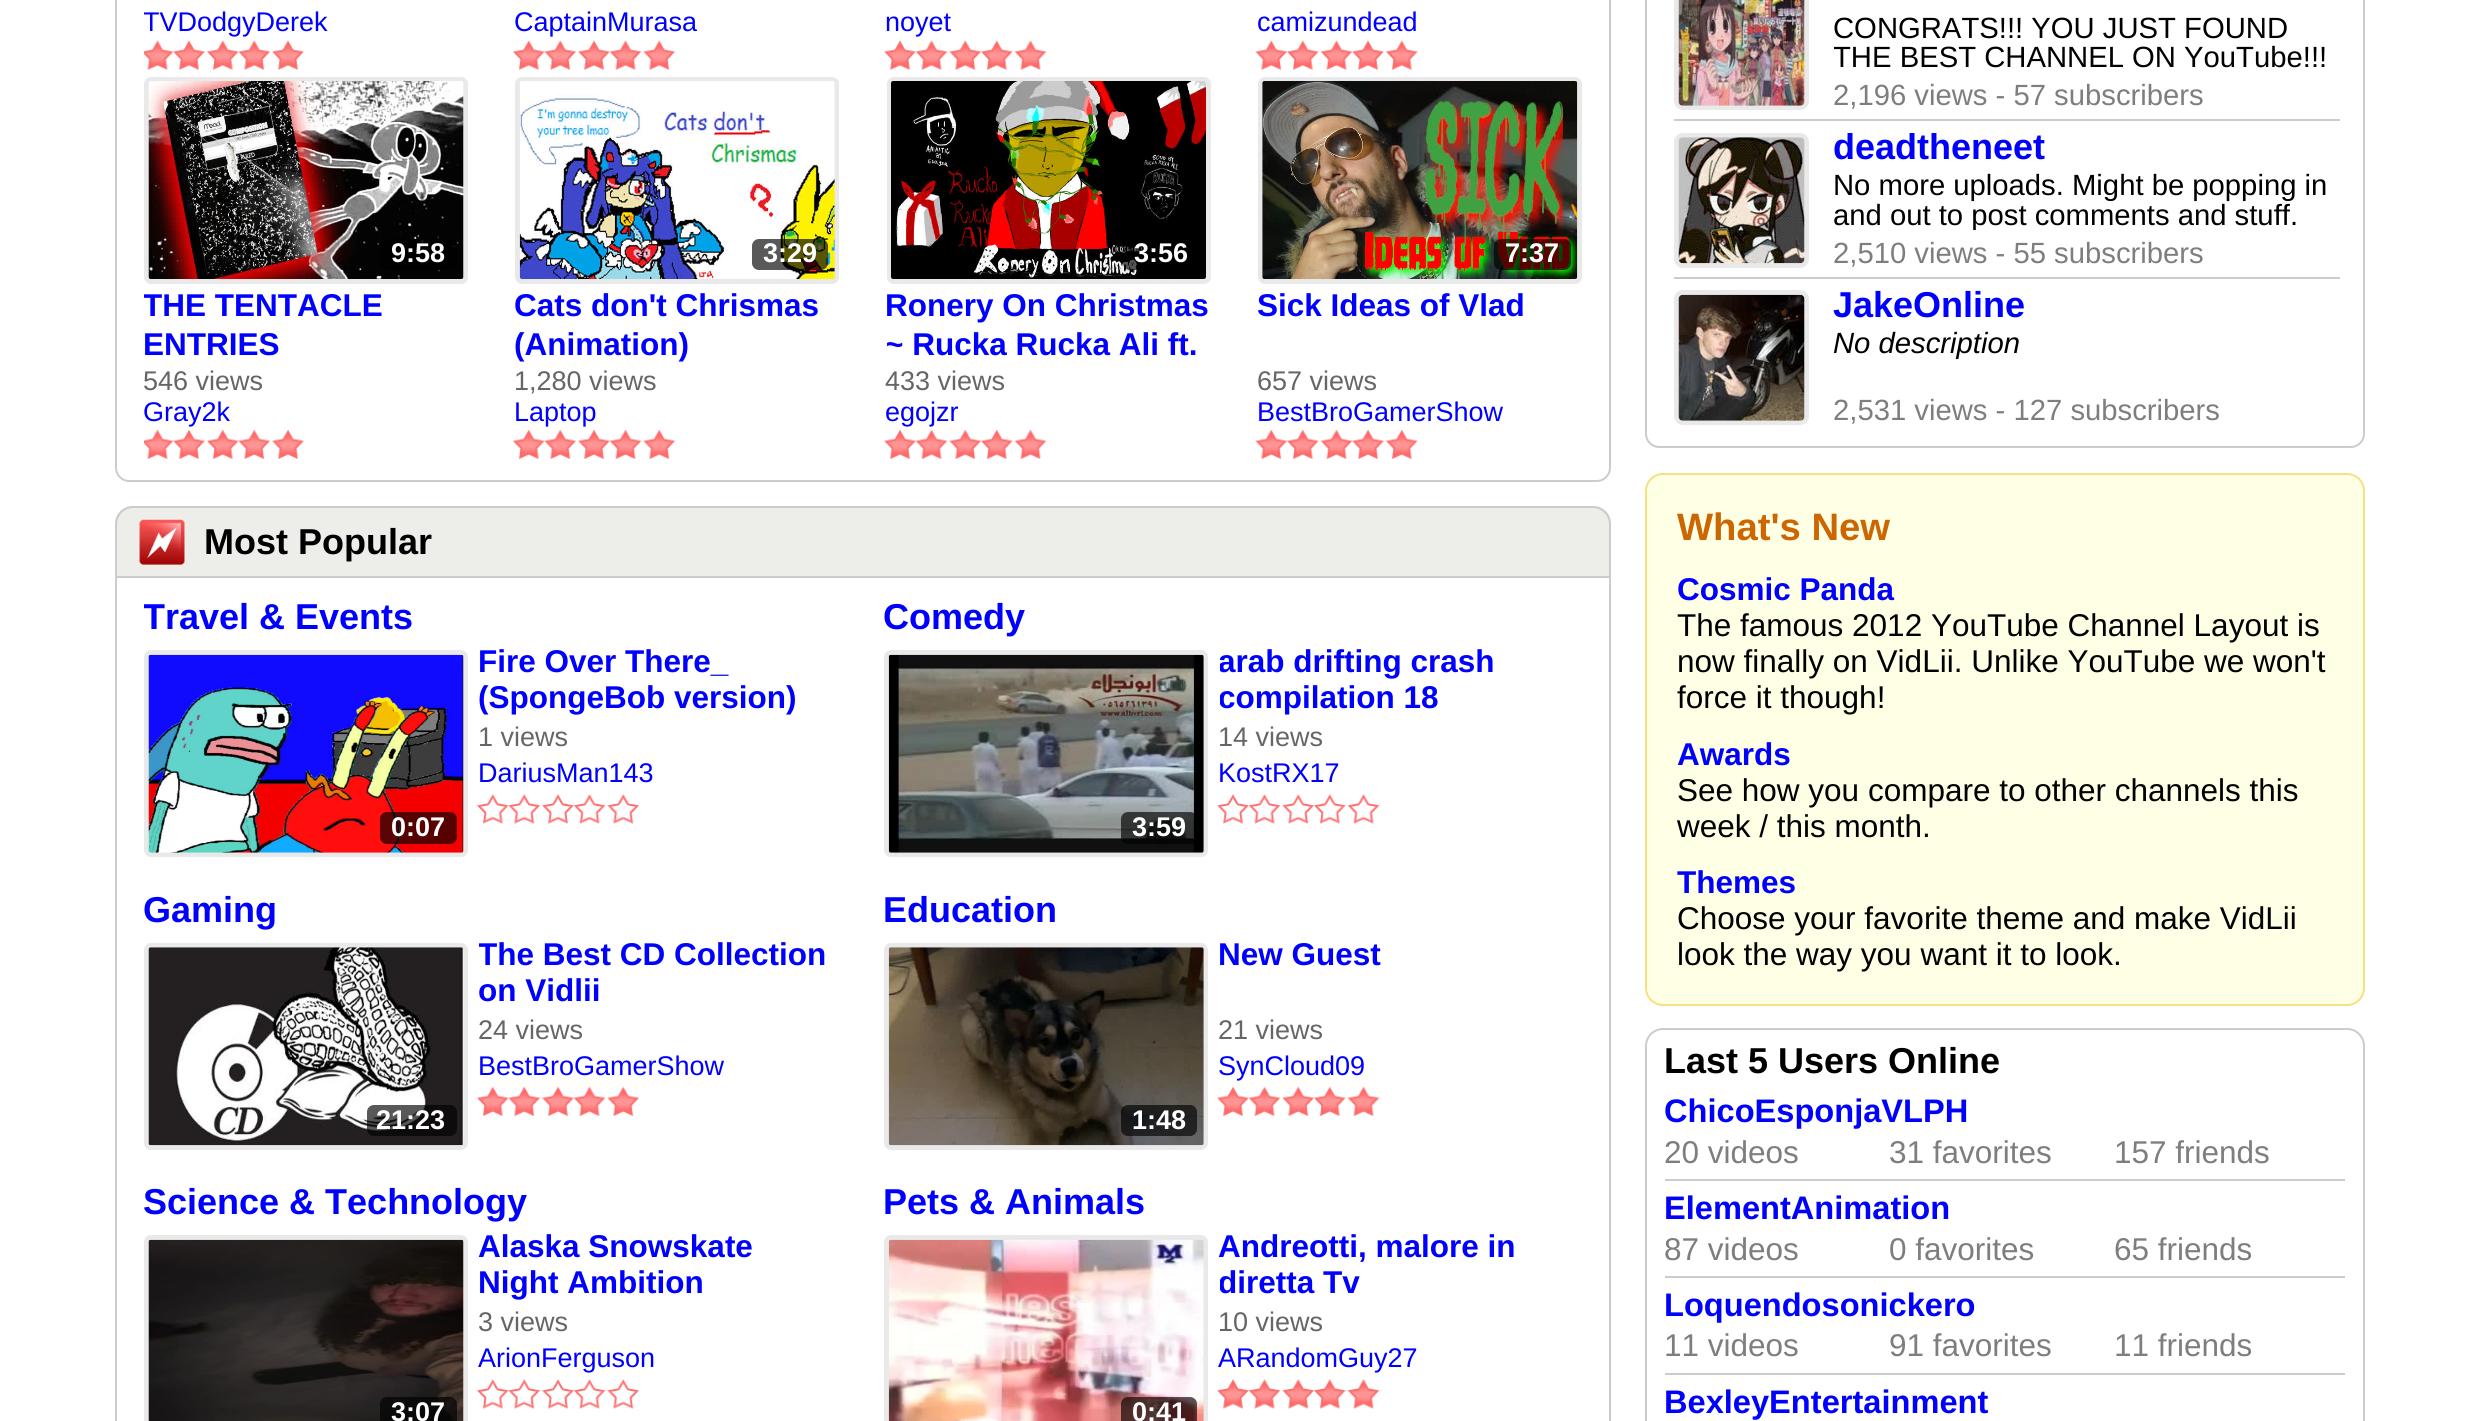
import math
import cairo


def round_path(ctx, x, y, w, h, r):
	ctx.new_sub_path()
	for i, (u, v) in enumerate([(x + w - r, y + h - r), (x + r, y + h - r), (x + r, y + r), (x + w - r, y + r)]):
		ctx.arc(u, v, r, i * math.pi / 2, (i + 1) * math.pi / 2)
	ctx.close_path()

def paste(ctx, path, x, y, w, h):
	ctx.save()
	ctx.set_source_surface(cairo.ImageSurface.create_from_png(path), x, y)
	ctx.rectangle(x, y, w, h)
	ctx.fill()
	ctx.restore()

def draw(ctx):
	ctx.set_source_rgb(1, 1, 1)
	ctx.paint()
	ctx.new_path()
	ctx.move_to(116, -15)
	ctx.line_to(1610, -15)
	ctx.line_to(1610, 468)
	ctx.curve_to(1610, 475, 1604, 481, 1597, 481)
	ctx.line_to(129, 481)
	ctx.curve_to(122, 481, 116, 475, 116, 468)
	ctx.close_path()
	ctx.set_source_rgb(0.8, 0.8, 0.8)
	ctx.stroke()
	ctx.save()
	ctx.rectangle(144, 0, 1442, 466)
	ctx.clip()
	ctx.select_font_face('Liberation Sans')
	ctx.set_font_size(27)
	ctx.set_source_rgb(0, 0, 1)
	ctx.move_to(143, 31)
	ctx.show_text('TVDodgyDerek')
	ctx.restore()
	paste(ctx, 'media/1.png', 144, 40, 30, 30)
	paste(ctx, 'media/2.png', 173, 40, 32, 30)
	paste(ctx, 'media/3.png', 207, 40, 32, 30)
	paste(ctx, 'media/4.png', 238, 40, 32, 30)
	paste(ctx, 'media/5.png', 272, 40, 32, 30)
	ctx.select_font_face('Liberation Sans')
	ctx.set_font_size(27)
	ctx.set_source_rgb(0, 0, 1)
	ctx.move_to(514, 31)
	ctx.show_text('CaptainMurasa')
	paste(ctx, 'media/3.png', 513, 40, 32, 30)
	paste(ctx, 'media/4.png', 544, 40, 32, 30)
	paste(ctx, 'media/5.png', 578, 40, 32, 30)
	paste(ctx, 'media/6.png', 609, 40, 33, 30)
	paste(ctx, 'media/7.png', 643, 40, 32, 30)
	ctx.move_to(885, 31)
	ctx.show_text('noyet')
	paste(ctx, 'media/5.png', 884, 40, 32, 30)
	paste(ctx, 'media/6.png', 915, 40, 33, 30)
	paste(ctx, 'media/7.png', 949, 40, 32, 30)
	paste(ctx, 'media/3.png', 981, 40, 32, 30)
	paste(ctx, 'media/8.png', 1014, 40, 33, 30)
	ctx.move_to(1257, 31)
	ctx.show_text('camizundead')
	paste(ctx, 'media/7.png', 1255, 40, 32, 30)
	paste(ctx, 'media/3.png', 1287, 40, 32, 30)
	paste(ctx, 'media/8.png', 1320, 40, 33, 30)
	paste(ctx, 'media/2.png', 1352, 40, 32, 30)
	paste(ctx, 'media/3.png', 1386, 40, 32, 30)
	round_path(ctx, 146.5, 79.5, 319, 202, 4.5)
	ctx.set_source_rgb(0.914, 0.914, 0.914)
	ctx.set_line_width(5)
	ctx.stroke()
	paste(ctx, 'media/9.png', 148, 81, 316, 198)
	ctx.set_source_rgba(0, 0, 0, 0.65)
	round_path(ctx, 380, 239, 77, 31, 7)
	ctx.fill()
	ctx.select_font_face('Liberation Sans', cairo.FONT_SLANT_NORMAL, cairo.FONT_WEIGHT_BOLD)
	ctx.set_source_rgb(1, 1, 1)
	ctx.move_to(391, 262)
	ctx.show_text('9:58')
	ctx.save()
	ctx.rectangle(144, 288, 326, 74)
	ctx.clip()
	ctx.set_font_size(31.5)
	ctx.set_source_rgb(0, 0, 1)
	ctx.move_to(143, 316)
	ctx.show_text('THE TENTACLE')
	ctx.restore()
	ctx.set_font_size(31.5)
	ctx.set_source_rgb(0, 0, 1)
	ctx.move_to(143, 355)
	ctx.show_text('ENTRIES')
	ctx.select_font_face('Liberation Sans')
	ctx.set_font_size(27)
	ctx.set_source_rgb(0.4, 0.4, 0.4)
	ctx.move_to(143, 390)
	ctx.show_text('546 views')
	ctx.set_source_rgb(0, 0, 1)
	ctx.move_to(143, 421)
	ctx.show_text('Gray2k')
	paste(ctx, 'media/10.png', 144, 429, 30, 30)
	paste(ctx, 'media/11.png', 173, 429, 32, 30)
	paste(ctx, 'media/12.png', 207, 429, 32, 30)
	paste(ctx, 'media/13.png', 238, 429, 32, 30)
	paste(ctx, 'media/14.png', 272, 429, 32, 30)
	round_path(ctx, 517.5, 79.5, 319, 202, 4.5)
	ctx.set_source_rgb(0.914, 0.914, 0.914)
	ctx.stroke()
	paste(ctx, 'media/15.png', 519, 81, 316, 198)
	ctx.set_source_rgba(0, 0, 0, 0.65)
	round_path(ctx, 752, 239, 76, 31, 7)
	ctx.fill()
	ctx.select_font_face('Liberation Sans', cairo.FONT_SLANT_NORMAL, cairo.FONT_WEIGHT_BOLD)
	ctx.set_source_rgb(1, 1, 1)
	ctx.move_to(763, 262)
	ctx.show_text('3:29')
	ctx.set_font_size(31.5)
	ctx.set_source_rgb(0, 0, 1)
	ctx.move_to(514, 316)
	ctx.show_text('Cats don\'t Chrismas')
	ctx.move_to(514, 355)
	ctx.show_text('(Animation)')
	ctx.select_font_face('Liberation Sans')
	ctx.set_font_size(27)
	ctx.set_source_rgb(0.4, 0.4, 0.4)
	ctx.move_to(514, 390)
	ctx.show_text('1,280 views')
	ctx.set_source_rgb(0, 0, 1)
	ctx.move_to(514, 421)
	ctx.show_text('Laptop')
	paste(ctx, 'media/12.png', 513, 429, 32, 30)
	paste(ctx, 'media/13.png', 544, 429, 32, 30)
	paste(ctx, 'media/14.png', 578, 429, 32, 30)
	paste(ctx, 'media/16.png', 609, 429, 33, 30)
	paste(ctx, 'media/17.png', 643, 429, 32, 30)
	round_path(ctx, 889.5, 79.5, 319, 202, 4.5)
	ctx.set_source_rgb(0.914, 0.914, 0.914)
	ctx.stroke()
	paste(ctx, 'media/18.png', 891, 81, 315, 198)
	ctx.set_source_rgba(0, 0, 0, 0.65)
	round_path(ctx, 1123, 239, 76, 31, 7)
	ctx.fill()
	ctx.select_font_face('Liberation Sans', cairo.FONT_SLANT_NORMAL, cairo.FONT_WEIGHT_BOLD)
	ctx.set_source_rgb(1, 1, 1)
	ctx.move_to(1134, 262)
	ctx.show_text('3:56')
	ctx.set_font_size(31.5)
	ctx.set_source_rgb(0, 0, 1)
	ctx.move_to(885, 316)
	ctx.show_text('Ronery On Christmas')
	ctx.save()
	ctx.rectangle(887, 288, 326, 74)
	ctx.clip()
	ctx.move_to(885, 355)
	ctx.show_text('~ Rucka Rucka Ali ft.')
	ctx.restore()
	ctx.select_font_face('Liberation Sans')
	ctx.set_font_size(27)
	ctx.set_source_rgb(0.4, 0.4, 0.4)
	ctx.move_to(885, 390)
	ctx.show_text('433 views')
	ctx.set_source_rgb(0, 0, 1)
	ctx.move_to(885, 421)
	ctx.show_text('egojzr')
	paste(ctx, 'media/14.png', 884, 429, 32, 30)
	paste(ctx, 'media/16.png', 915, 429, 33, 30)
	paste(ctx, 'media/17.png', 949, 429, 32, 30)
	paste(ctx, 'media/12.png', 981, 429, 32, 30)
	paste(ctx, 'media/19.png', 1014, 429, 33, 30)
	round_path(ctx, 1260.5, 79.5, 319, 202, 4.5)
	ctx.set_source_rgb(0.914, 0.914, 0.914)
	ctx.stroke()
	paste(ctx, 'media/20.png', 1262, 81, 316, 198)
	ctx.set_source_rgba(0, 0, 0, 0.65)
	round_path(ctx, 1494, 239, 77, 31, 7)
	ctx.fill()
	ctx.select_font_face('Liberation Sans', cairo.FONT_SLANT_NORMAL, cairo.FONT_WEIGHT_BOLD)
	ctx.set_source_rgb(1, 1, 1)
	ctx.move_to(1505, 262)
	ctx.show_text('7:37')
	ctx.set_font_size(31.5)
	ctx.set_source_rgb(0, 0, 1)
	ctx.move_to(1257, 316)
	ctx.show_text('Sick Ideas of Vlad')
	ctx.select_font_face('Liberation Sans')
	ctx.set_font_size(27)
	ctx.set_source_rgb(0.4, 0.4, 0.4)
	ctx.move_to(1257, 390)
	ctx.show_text('657 views')
	ctx.set_source_rgb(0, 0, 1)
	ctx.move_to(1257, 421)
	ctx.show_text('BestBroGamerShow')
	paste(ctx, 'media/17.png', 1255, 429, 32, 30)
	paste(ctx, 'media/12.png', 1287, 429, 32, 30)
	paste(ctx, 'media/19.png', 1320, 429, 33, 30)
	paste(ctx, 'media/11.png', 1352, 429, 32, 30)
	paste(ctx, 'media/12.png', 1386, 429, 32, 30)
	ctx.set_source_rgb(0.929, 0.929, 0.914)
	ctx.new_path()
	ctx.move_to(133, 506)
	ctx.line_to(1593, 506)
	ctx.curve_to(1603, 506, 1611, 514, 1611, 524)
	ctx.line_to(1611, 576)
	ctx.line_to(115, 576)
	ctx.line_to(115, 524)
	ctx.curve_to(115, 514, 123, 506, 133, 506)
	ctx.close_path()
	ctx.fill()
	ctx.set_source_rgb(0.8, 0.8, 0.8)
	ctx.set_fill_rule(cairo.FILL_RULE_EVEN_ODD)
	ctx.new_path()
	ctx.move_to(133, 506)
	ctx.line_to(1593, 506)
	ctx.curve_to(1603, 506, 1611, 514, 1611, 524)
	ctx.line_to(1611, 576)
	ctx.line_to(115, 576)
	ctx.line_to(115, 524)
	ctx.curve_to(115, 514, 123, 506, 133, 506)
	ctx.close_path()
	ctx.move_to(133, 508)
	ctx.line_to(1593, 508)
	ctx.curve_to(1602, 508, 1609, 516, 1609, 524)
	ctx.line_to(1609, 576)
	ctx.line_to(117, 576)
	ctx.line_to(117, 524)
	ctx.curve_to(117, 516, 124, 508, 133, 508)
	ctx.close_path()
	ctx.fill()
	paste(ctx, 'media/21.png', 139, 519, 46, 46)
	ctx.select_font_face('Liberation Sans', cairo.FONT_SLANT_NORMAL, cairo.FONT_WEIGHT_BOLD)
	ctx.set_font_size(36)
	ctx.set_source_rgb(0, 0, 0)
	ctx.move_to(204, 554)
	ctx.show_text('Most Popular')
	ctx.rectangle(116, 577, 1494, 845)
	ctx.set_source_rgb(0.8, 0.8, 0.8)
	ctx.set_line_width(2)
	ctx.stroke()
	ctx.save()
	ctx.set_fill_rule(cairo.FILL_RULE_WINDING)
	ctx.rectangle(144, 599, 695, 265)
	ctx.clip()
	ctx.set_source_rgb(0, 0, 1)
	ctx.move_to(143, 629)
	ctx.show_text('Travel & Events')
	ctx.restore()
	ctx.set_font_size(31.5)
	ctx.set_source_rgb(0, 0, 1)
	ctx.move_to(478, 672)
	ctx.show_text('Fire Over There_')
	ctx.move_to(478, 708)
	ctx.show_text('(SpongeBob version)')
	ctx.select_font_face('Liberation Sans')
	ctx.set_font_size(27)
	ctx.set_source_rgb(0.4, 0.4, 0.4)
	ctx.move_to(478, 746)
	ctx.show_text('1 views')
	ctx.set_source_rgb(0, 0, 1)
	ctx.move_to(478, 782)
	ctx.show_text('DariusMan143')
	paste(ctx, 'media/22.png', 477, 794, 32, 30)
	paste(ctx, 'media/23.png', 508, 794, 32, 30)
	paste(ctx, 'media/24.png', 542, 794, 32, 30)
	paste(ctx, 'media/25.png', 573, 794, 33, 30)
	paste(ctx, 'media/26.png', 607, 794, 32, 30)
	round_path(ctx, 146.5, 652.5, 319, 202, 4.5)
	ctx.set_source_rgb(0.914, 0.914, 0.914)
	ctx.set_line_width(5)
	ctx.stroke()
	paste(ctx, 'media/27.png', 148, 654, 316, 199)
	ctx.set_source_rgba(0, 0, 0, 0.65)
	round_path(ctx, 380, 812, 77, 32, 7)
	ctx.fill()
	ctx.select_font_face('Liberation Sans', cairo.FONT_SLANT_NORMAL, cairo.FONT_WEIGHT_BOLD)
	ctx.set_source_rgb(1, 1, 1)
	ctx.move_to(391, 836)
	ctx.show_text('0:07')
	ctx.set_font_size(36)
	ctx.set_source_rgb(0, 0, 1)
	ctx.move_to(883, 629)
	ctx.show_text('Comedy')
	ctx.save()
	ctx.set_fill_rule(cairo.FILL_RULE_WINDING)
	ctx.rectangle(1220, 644, 353, 74)
	ctx.clip()
	ctx.set_font_size(31.5)
	ctx.move_to(1218, 672)
	ctx.show_text('arab drifting crash')
	ctx.move_to(1218, 708)
	ctx.show_text('compilation 18')
	ctx.restore()
	ctx.select_font_face('Liberation Sans')
	ctx.set_font_size(27)
	ctx.set_source_rgb(0.4, 0.4, 0.4)
	ctx.move_to(1218, 746)
	ctx.show_text('14 views')
	ctx.set_source_rgb(0, 0, 1)
	ctx.move_to(1218, 782)
	ctx.show_text('KostRX17')
	paste(ctx, 'media/24.png', 1217, 794, 32, 30)
	paste(ctx, 'media/25.png', 1248, 794, 33, 30)
	paste(ctx, 'media/26.png', 1282, 794, 32, 30)
	paste(ctx, 'media/22.png', 1314, 794, 32, 30)
	paste(ctx, 'media/28.png', 1347, 794, 33, 30)
	round_path(ctx, 886.5, 652.5, 319, 202, 4.5)
	ctx.set_source_rgb(0.914, 0.914, 0.914)
	ctx.stroke()
	paste(ctx, 'media/29.png', 888, 654, 316, 199)
	ctx.set_source_rgba(0, 0, 0, 0.65)
	round_path(ctx, 1121, 812, 76, 32, 7)
	ctx.fill()
	ctx.select_font_face('Liberation Sans', cairo.FONT_SLANT_NORMAL, cairo.FONT_WEIGHT_BOLD)
	ctx.set_source_rgb(1, 1, 1)
	ctx.move_to(1132, 836)
	ctx.show_text('3:59')
	ctx.set_font_size(36)
	ctx.set_source_rgb(0, 0, 1)
	ctx.move_to(143, 922)
	ctx.show_text('Gaming')
	ctx.save()
	ctx.set_fill_rule(cairo.FILL_RULE_WINDING)
	ctx.rectangle(479, 936, 354, 74)
	ctx.clip()
	ctx.set_font_size(31.5)
	ctx.move_to(478, 965)
	ctx.show_text('The Best CD Collection')
	ctx.restore()
	ctx.set_font_size(31.5)
	ctx.move_to(478, 1001)
	ctx.show_text('on Vidlii')
	ctx.select_font_face('Liberation Sans')
	ctx.set_font_size(27)
	ctx.set_source_rgb(0.4, 0.4, 0.4)
	ctx.move_to(478, 1039)
	ctx.show_text('24 views')
	ctx.set_source_rgb(0, 0, 1)
	ctx.move_to(478, 1075)
	ctx.show_text('BestBroGamerShow')
	paste(ctx, 'media/30.png', 477, 1086, 32, 30)
	paste(ctx, 'media/31.png', 508, 1086, 32, 30)
	paste(ctx, 'media/32.png', 542, 1086, 32, 30)
	paste(ctx, 'media/33.png', 573, 1086, 33, 30)
	paste(ctx, 'media/34.png', 607, 1086, 32, 30)
	round_path(ctx, 146.5, 945.5, 319, 202, 4.5)
	ctx.set_source_rgb(0.914, 0.914, 0.914)
	ctx.stroke()
	paste(ctx, 'media/35.png', 148, 947, 316, 199)
	ctx.set_source_rgba(0, 0, 0, 0.65)
	round_path(ctx, 367, 1105, 90, 31, 7)
	ctx.fill()
	ctx.select_font_face('Liberation Sans', cairo.FONT_SLANT_NORMAL, cairo.FONT_WEIGHT_BOLD)
	ctx.set_source_rgb(1, 1, 1)
	ctx.move_to(376, 1129)
	ctx.show_text('21:23')
	ctx.set_font_size(36)
	ctx.set_source_rgb(0, 0, 1)
	ctx.move_to(883, 922)
	ctx.show_text('Education')
	ctx.set_font_size(31.5)
	ctx.move_to(1218, 965)
	ctx.show_text('New Guest')
	ctx.select_font_face('Liberation Sans')
	ctx.set_font_size(27)
	ctx.set_source_rgb(0.4, 0.4, 0.4)
	ctx.move_to(1218, 1039)
	ctx.show_text('21 views')
	ctx.set_source_rgb(0, 0, 1)
	ctx.move_to(1218, 1075)
	ctx.show_text('SynCloud09')
	paste(ctx, 'media/32.png', 1217, 1086, 32, 30)
	paste(ctx, 'media/33.png', 1248, 1086, 33, 30)
	paste(ctx, 'media/34.png', 1282, 1086, 32, 30)
	paste(ctx, 'media/30.png', 1314, 1086, 32, 30)
	paste(ctx, 'media/36.png', 1347, 1086, 33, 30)
	round_path(ctx, 886.5, 945.5, 319, 202, 4.5)
	ctx.set_source_rgb(0.914, 0.914, 0.914)
	ctx.stroke()
	paste(ctx, 'media/37.png', 888, 947, 316, 199)
	ctx.set_source_rgba(0, 0, 0, 0.65)
	round_path(ctx, 1121, 1105, 76, 31, 7)
	ctx.fill()
	ctx.select_font_face('Liberation Sans', cairo.FONT_SLANT_NORMAL, cairo.FONT_WEIGHT_BOLD)
	ctx.set_source_rgb(1, 1, 1)
	ctx.move_to(1132, 1129)
	ctx.show_text('1:48')
	ctx.set_font_size(36)
	ctx.set_source_rgb(0, 0, 1)
	ctx.move_to(143, 1214)
	ctx.show_text('Science & Technology')
	ctx.set_font_size(31.5)
	ctx.move_to(478, 1257)
	ctx.show_text('Alaska Snowskate')
	ctx.move_to(478, 1293)
	ctx.show_text('Night Ambition')
	ctx.select_font_face('Liberation Sans')
	ctx.set_font_size(27)
	ctx.set_source_rgb(0.4, 0.4, 0.4)
	ctx.move_to(478, 1331)
	ctx.show_text('3 views')
	ctx.set_source_rgb(0, 0, 1)
	ctx.move_to(478, 1367)
	ctx.show_text('ArionFerguson')
	paste(ctx, 'media/22.png', 477, 1379, 32, 30)
	paste(ctx, 'media/23.png', 508, 1379, 32, 30)
	paste(ctx, 'media/24.png', 542, 1379, 32, 30)
	paste(ctx, 'media/25.png', 573, 1379, 33, 30)
	paste(ctx, 'media/26.png', 607, 1379, 32, 30)
	round_path(ctx, 146.5, 1237.5, 319, 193, 4.5)
	ctx.set_source_rgb(0.914, 0.914, 0.914)
	ctx.stroke()
	paste(ctx, 'media/38.png', 148, 1239, 316, 182)
	ctx.set_source_rgba(0, 0, 0, 0.65)
	round_path(ctx, 380, 1397, 77, 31, 7)
	ctx.fill()
	ctx.select_font_face('Liberation Sans', cairo.FONT_SLANT_NORMAL, cairo.FONT_WEIGHT_BOLD)
	ctx.set_source_rgb(1, 1, 1)
	ctx.move_to(391, 1421)
	ctx.show_text('3:07')
	ctx.set_font_size(36)
	ctx.set_source_rgb(0, 0, 1)
	ctx.move_to(883, 1214)
	ctx.show_text('Pets & Animals')
	ctx.set_font_size(31.5)
	ctx.move_to(1218, 1257)
	ctx.show_text('Andreotti, malore in')
	ctx.save()
	ctx.set_fill_rule(cairo.FILL_RULE_WINDING)
	ctx.rectangle(1220, 1229, 353, 74)
	ctx.clip()
	ctx.move_to(1218, 1293)
	ctx.show_text('diretta Tv')
	ctx.restore()
	ctx.select_font_face('Liberation Sans')
	ctx.set_font_size(27)
	ctx.set_source_rgb(0.4, 0.4, 0.4)
	ctx.move_to(1218, 1331)
	ctx.show_text('10 views')
	ctx.set_source_rgb(0, 0, 1)
	ctx.move_to(1218, 1367)
	ctx.show_text('ARandomGuy27')
	paste(ctx, 'media/39.png', 1217, 1379, 32, 30)
	paste(ctx, 'media/40.png', 1248, 1379, 33, 30)
	paste(ctx, 'media/41.png', 1282, 1379, 32, 30)
	paste(ctx, 'media/42.png', 1314, 1379, 32, 30)
	paste(ctx, 'media/43.png', 1347, 1379, 33, 30)
	round_path(ctx, 886.5, 1237.5, 319, 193, 4.5)
	ctx.set_source_rgb(0.914, 0.914, 0.914)
	ctx.stroke()
	paste(ctx, 'media/44.png', 888, 1239, 316, 182)
	ctx.set_source_rgba(0, 0, 0, 0.65)
	round_path(ctx, 1121, 1397, 76, 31, 7)
	ctx.fill()
	ctx.select_font_face('Liberation Sans', cairo.FONT_SLANT_NORMAL, cairo.FONT_WEIGHT_BOLD)
	ctx.set_source_rgb(1, 1, 1)
	ctx.move_to(1132, 1421)
	ctx.show_text('0:41')
	ctx.new_path()
	ctx.move_to(1646, -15)
	ctx.line_to(2364, -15)
	ctx.line_to(2364, 434)
	ctx.curve_to(2364, 441, 2358, 447, 2351, 447)
	ctx.line_to(1659, 447)
	ctx.curve_to(1652, 447, 1646, 441, 1646, 434)
	ctx.close_path()
	ctx.set_source_rgb(0.8, 0.8, 0.8)
	ctx.set_line_width(2)
	ctx.stroke()
	ctx.rectangle(1674, 119, 666, 2)
	ctx.fill()
	round_path(ctx, 1676.5, -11.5, 130, 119, 6.5)
	ctx.set_source_rgb(0.914, 0.914, 0.914)
	ctx.set_line_width(5)
	ctx.stroke()
	paste(ctx, 'media/45.png', 1678, 0, 127, 106)
	ctx.select_font_face('Liberation Sans')
	ctx.set_font_size(29.25)
	ctx.set_source_rgb(0, 0, 0)
	ctx.move_to(1833, 38)
	ctx.show_text('CONGRATS!!! YOU JUST FOUND')
	ctx.save()
	ctx.set_fill_rule(cairo.FILL_RULE_WINDING)
	ctx.rectangle(1834, 14, 504, 58)
	ctx.clip()
	ctx.move_to(1833, 67)
	ctx.show_text('THE BEST CHANNEL ON YouTube!!!')
	ctx.restore()
	ctx.set_source_rgb(0.494, 0.494, 0.494)
	ctx.move_to(1833, 105)
	ctx.show_text('2,196 views - 57 subscribers')
	ctx.set_source_rgb(0.8, 0.8, 0.8)
	ctx.rectangle(1674, 277, 666, 2)
	ctx.fill()
	round_path(ctx, 1676.5, 135.5, 130, 130, 6.5)
	ctx.set_source_rgb(0.914, 0.914, 0.914)
	ctx.stroke()
	paste(ctx, 'media/46.png', 1678, 137, 127, 127)
	ctx.save()
	ctx.set_fill_rule(cairo.FILL_RULE_WINDING)
	ctx.rectangle(1674, 133, 666, 144)
	ctx.clip()
	ctx.select_font_face('Liberation Sans', cairo.FONT_SLANT_NORMAL, cairo.FONT_WEIGHT_BOLD)
	ctx.set_font_size(36)
	ctx.set_source_rgb(0, 0, 1)
	ctx.move_to(1833, 159)
	ctx.show_text('deadtheneet')
	ctx.restore()
	ctx.set_source_rgb(0, 0, 0)
	ctx.move_to(1833, 195)
	ctx.show_text('No more uploads. Might be popping in')
	ctx.save()
	ctx.set_fill_rule(cairo.FILL_RULE_WINDING)
	ctx.rectangle(1834, 171, 504, 59)
	ctx.clip()
	ctx.move_to(1833, 225)
	ctx.show_text('and out to post comments and stuff.')
	ctx.restore()
	ctx.set_source_rgb(0.494, 0.494, 0.494)
	ctx.move_to(1833, 263)
	ctx.show_text('2,510 views - 55 subscribers')
	round_path(ctx, 1676.5, 292.5, 130, 130, 6.5)
	ctx.set_source_rgb(0.914, 0.914, 0.914)
	ctx.stroke()
	paste(ctx, 'media/47.png', 1678, 294, 127, 127)
	ctx.select_font_face('Liberation Sans', cairo.FONT_SLANT_NORMAL, cairo.FONT_WEIGHT_BOLD)
	ctx.set_font_size(36)
	ctx.set_source_rgb(0, 0, 1)
	ctx.move_to(1833, 317)
	ctx.show_text('JakeOnline')
	ctx.select_font_face('Liberation Sans', cairo.FONT_SLANT_ITALIC)
	ctx.set_font_size(29.25)
	ctx.set_source_rgb(0, 0, 0)
	ctx.move_to(1833, 353)
	ctx.show_text('No description')
	ctx.select_font_face('Liberation Sans')
	ctx.set_source_rgb(0.494, 0.494, 0.494)
	ctx.move_to(1833, 420)
	ctx.show_text('2,531 views - 127 subscribers')
	ctx.set_source_rgb(1, 1, 0.898)
	round_path(ctx, 1646, 474, 718, 531, 17)
	ctx.fill_preserve()
	ctx.set_source_rgb(0.961, 0.878, 0.51)
	ctx.set_line_width(2)
	ctx.stroke()
	ctx.select_font_face('Liberation Sans', cairo.FONT_SLANT_NORMAL, cairo.FONT_WEIGHT_BOLD)
	ctx.set_font_size(38.25)
	ctx.set_source_rgb(0.8, 0.4, 0)
	ctx.move_to(1677, 540)
	ctx.show_text('What\'s New')
	ctx.set_font_size(31.5)
	ctx.set_source_rgb(0, 0, 1)
	ctx.move_to(1677, 600)
	ctx.show_text('Cosmic Panda')
	ctx.select_font_face('Liberation Sans')
	ctx.set_source_rgb(0, 0, 0)
	for x, y, s in [
		(1677, 636, 'The famous 2012 YouTube Channel Layout is'),
		(1677, 672, 'now finally on VidLii. Unlike YouTube we won\'t'),
		(1677, 708, 'force it though!'),
	]:
		ctx.move_to(x, y)
		ctx.show_text(s)
	ctx.select_font_face('Liberation Sans', cairo.FONT_SLANT_NORMAL, cairo.FONT_WEIGHT_BOLD)
	ctx.set_source_rgb(0, 0, 1)
	ctx.move_to(1677, 765)
	ctx.show_text('Awards')
	ctx.select_font_face('Liberation Sans')
	ctx.set_source_rgb(0, 0, 0)
	ctx.move_to(1677, 801)
	ctx.show_text('See how you compare to other channels this')
	ctx.move_to(1677, 837)
	ctx.show_text('week / this month.')
	ctx.select_font_face('Liberation Sans', cairo.FONT_SLANT_NORMAL, cairo.FONT_WEIGHT_BOLD)
	ctx.set_source_rgb(0, 0, 1)
	ctx.move_to(1677, 893)
	ctx.show_text('Themes')
	ctx.select_font_face('Liberation Sans')
	ctx.set_source_rgb(0, 0, 0)
	ctx.move_to(1677, 929)
	ctx.show_text('Choose your favorite theme and make VidLii')
	ctx.move_to(1677, 965)
	ctx.show_text('look the way you want it to look.')
	round_path(ctx, 1646, 1029, 718, 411, 17)
	ctx.set_source_rgb(0.8, 0.8, 0.8)
	ctx.stroke()
	ctx.select_font_face('Liberation Sans', cairo.FONT_SLANT_NORMAL, cairo.FONT_WEIGHT_BOLD)
	ctx.set_font_size(36)
	ctx.set_source_rgb(0, 0, 0)
	ctx.move_to(1664, 1073)
	ctx.show_text('Last 5 Users Online')
	ctx.set_source_rgb(0.8, 0.8, 0.8)
	ctx.rectangle(1665, 1179, 680, 2)
	ctx.fill()
	ctx.set_font_size(32.6)
	ctx.set_source_rgb(0, 0, 1)
	ctx.move_to(1664, 1122)
	ctx.show_text('ChicoEsponjaVLPH')
	ctx.select_font_face('Liberation Sans')
	ctx.set_font_size(31.5)
	ctx.set_source_rgb(0.494, 0.494, 0.494)
	for x, y, s in [
		(1664, 1163, '20 videos'),
		(1889, 1163, '31 favorites'),
		(2114, 1163, '157 friends'),
	]:
		ctx.move_to(x, y)
		ctx.show_text(s)
	ctx.set_source_rgb(0.8, 0.8, 0.8)
	ctx.rectangle(1665, 1276, 680, 2)
	ctx.fill()
	ctx.select_font_face('Liberation Sans', cairo.FONT_SLANT_NORMAL, cairo.FONT_WEIGHT_BOLD)
	ctx.set_font_size(32.6)
	ctx.set_source_rgb(0, 0, 1)
	ctx.move_to(1664, 1219)
	ctx.show_text('ElementAnimation')
	ctx.select_font_face('Liberation Sans')
	ctx.set_font_size(31.5)
	ctx.set_source_rgb(0.494, 0.494, 0.494)
	for x, y, s in [
		(1664, 1260, '87 videos'),
		(1889, 1260, '0 favorites'),
		(2114, 1260, '65 friends'),
	]:
		ctx.move_to(x, y)
		ctx.show_text(s)
	ctx.set_source_rgb(0.8, 0.8, 0.8)
	ctx.rectangle(1665, 1373, 680, 2)
	ctx.fill()
	ctx.select_font_face('Liberation Sans', cairo.FONT_SLANT_NORMAL, cairo.FONT_WEIGHT_BOLD)
	ctx.set_font_size(32.6)
	ctx.set_source_rgb(0, 0, 1)
	ctx.move_to(1664, 1316)
	ctx.show_text('Loquendosonickero')
	ctx.select_font_face('Liberation Sans')
	ctx.set_font_size(31.5)
	ctx.set_source_rgb(0.494, 0.494, 0.494)
	for x, y, s in [
		(1664, 1356, '11 videos'),
		(1889, 1356, '91 favorites'),
		(2114, 1356, '11 friends'),
	]:
		ctx.move_to(x, y)
		ctx.show_text(s)
	ctx.select_font_face('Liberation Sans', cairo.FONT_SLANT_NORMAL, cairo.FONT_WEIGHT_BOLD)
	ctx.set_font_size(32.6)
	ctx.set_source_rgb(0, 0, 1)
	ctx.move_to(1664, 1413)
	ctx.show_text('BexleyEntertainment')


surface = cairo.ImageSurface(cairo.FORMAT_RGB24, 2476, 1421)
ctx = cairo.Context(surface)
options = cairo.FontOptions()
options.set_hint_metrics(cairo.HINT_METRICS_OFF)
options.set_hint_style(cairo.HINT_STYLE_NONE)
ctx.set_font_options(options)
ctx.set_miter_limit(4)
draw(ctx)
surface.write_to_png('image.png')
